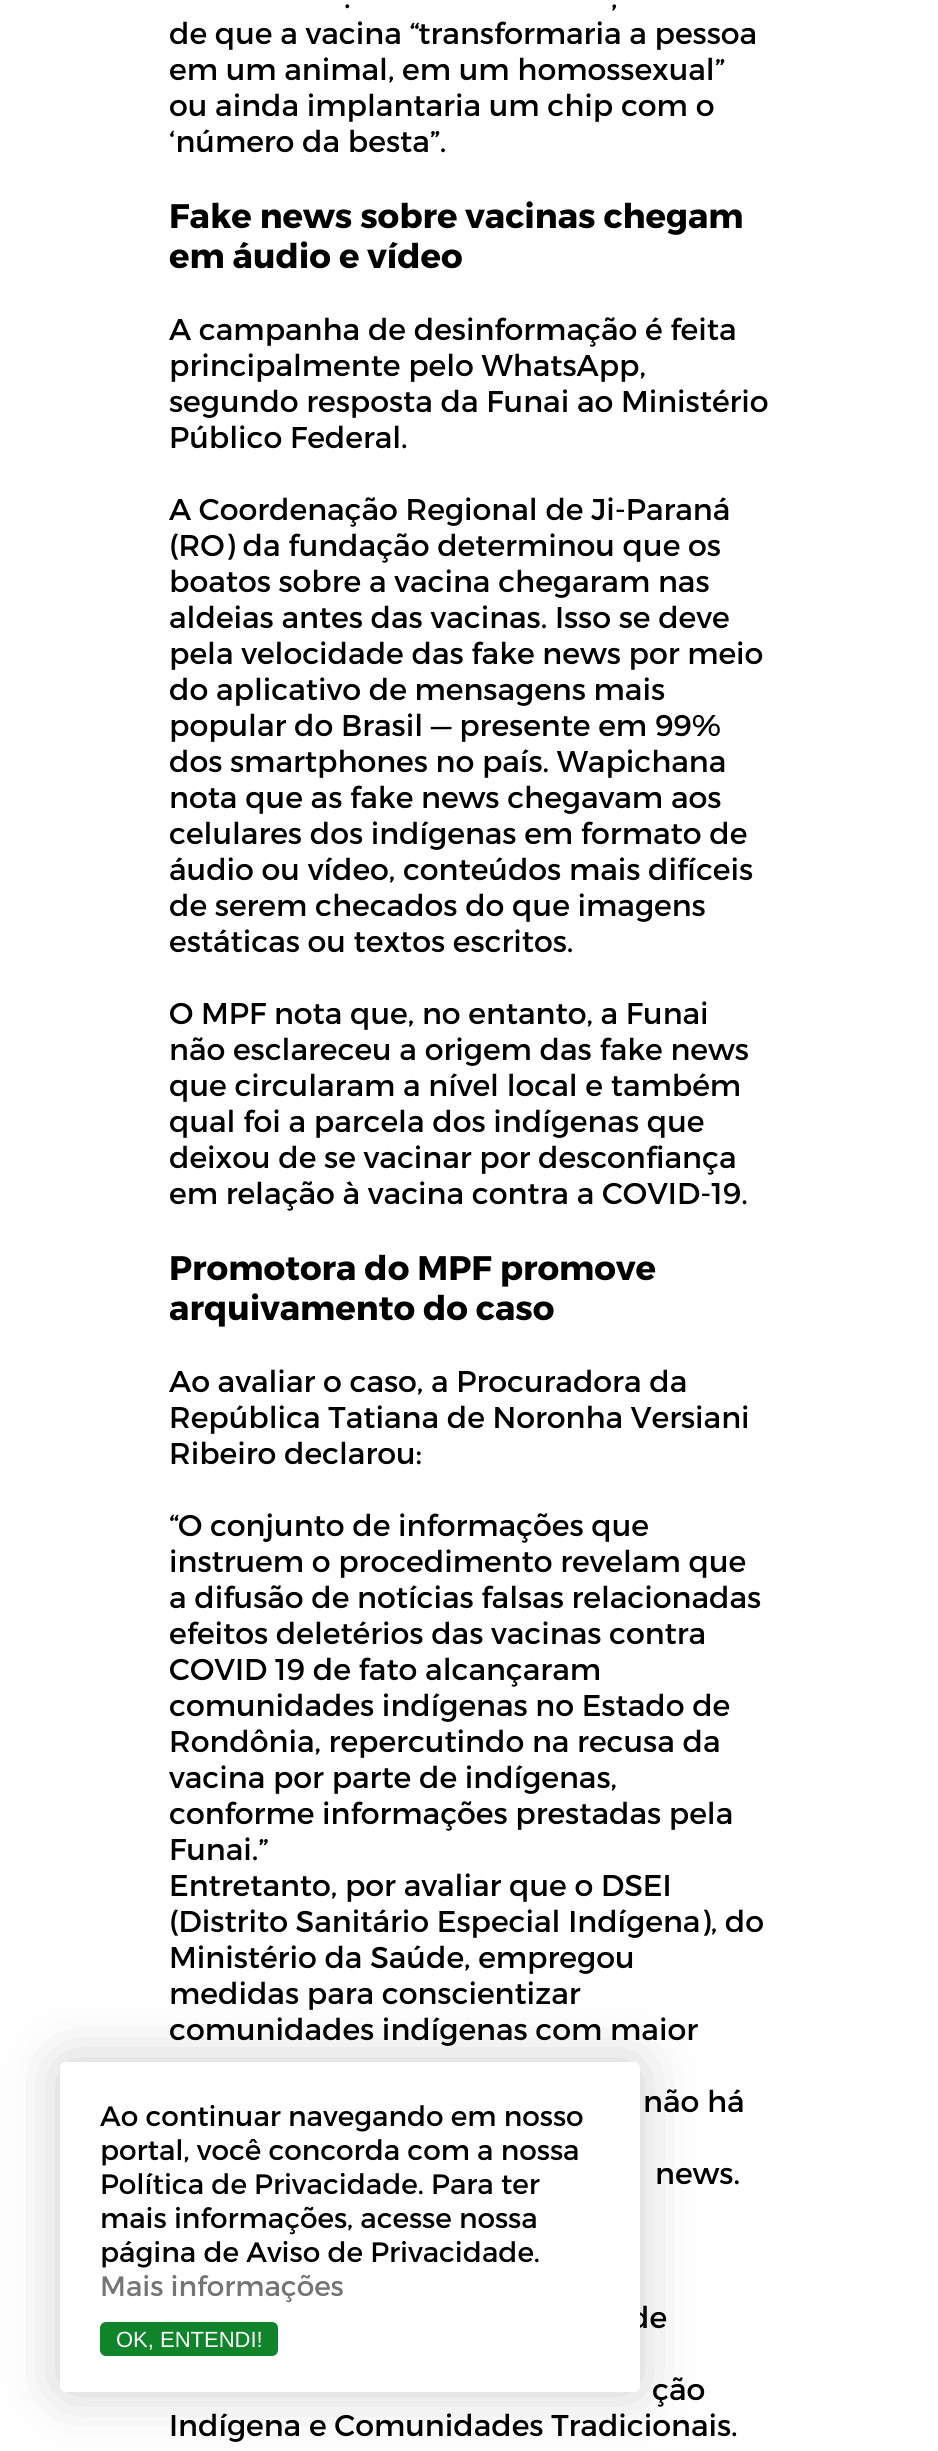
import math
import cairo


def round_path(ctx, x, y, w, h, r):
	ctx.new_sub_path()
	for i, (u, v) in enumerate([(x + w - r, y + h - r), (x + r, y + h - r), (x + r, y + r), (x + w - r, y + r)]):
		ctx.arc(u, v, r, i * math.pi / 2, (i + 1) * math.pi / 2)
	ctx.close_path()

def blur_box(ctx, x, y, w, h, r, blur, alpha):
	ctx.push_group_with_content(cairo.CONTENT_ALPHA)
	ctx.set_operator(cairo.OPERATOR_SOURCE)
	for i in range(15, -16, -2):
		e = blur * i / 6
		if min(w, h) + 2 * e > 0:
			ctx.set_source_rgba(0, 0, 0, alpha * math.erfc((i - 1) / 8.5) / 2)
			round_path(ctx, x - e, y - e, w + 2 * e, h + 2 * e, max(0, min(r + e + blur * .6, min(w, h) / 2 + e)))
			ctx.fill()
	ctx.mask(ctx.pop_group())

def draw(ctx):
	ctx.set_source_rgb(1, 1, 1)
	ctx.paint()
	ctx.select_font_face('Montserrat')
	ctx.set_font_size(30)
	ctx.set_source_rgb(0, 0, 0)
	for x, y, s in [
		(344, 8, '.'),
		(611, 8, ','),
		(169, 44, 'de que a vacina “transformaria a pessoa'),
		(169, 80, 'em um animal, em um homossexual”'),
		(169, 116, 'ou ainda implantaria um chip com o'),
		(169, 152, '‘número da besta”.'),
	]:
		ctx.move_to(x, y)
		ctx.show_text(s)
	ctx.select_font_face('Montserrat', cairo.FONT_SLANT_NORMAL, cairo.FONT_WEIGHT_BOLD)
	ctx.set_font_size(34)
	ctx.move_to(169, 228)
	ctx.show_text('Fake news sobre vacinas chegam')
	ctx.move_to(169, 268)
	ctx.show_text('em áudio e vídeo')
	ctx.select_font_face('Montserrat')
	ctx.set_font_size(30)
	for x, y, s in [
		(169, 340, 'A campanha de desinformação é feita'),
		(169, 376, 'principalmente pelo WhatsApp,'),
		(169, 412, 'segundo resposta da Funai ao Ministério'),
		(169, 448, 'Público Federal.'),
		(169, 520, 'A Coordenação Regional de Ji-Paraná'),
		(169, 556, '(RO) da fundação determinou que os'),
		(169, 592, 'boatos sobre a vacina chegaram nas'),
		(169, 628, 'aldeias antes das vacinas. Isso se deve'),
		(169, 664, 'pela velocidade das fake news por meio'),
		(169, 700, 'do aplicativo de mensagens mais'),
		(169, 736, 'popular do Brasil — presente em 99%'),
		(169, 772, 'dos smartphones no país. Wapichana'),
		(169, 808, 'nota que as fake news chegavam aos'),
		(169, 844, 'celulares dos indígenas em formato de'),
		(169, 880, 'áudio ou vídeo, conteúdos mais difíceis'),
		(169, 916, 'de serem checados do que imagens'),
		(169, 952, 'estáticas ou textos escritos.'),
		(169, 1024, 'O MPF nota que, no entanto, a Funai'),
		(169, 1060, 'não esclareceu a origem das fake news'),
		(169, 1096, 'que circularam a nível local e também'),
		(169, 1132, 'qual foi a parcela dos indígenas que'),
		(169, 1168, 'deixou de se vacinar por desconfiança'),
		(169, 1204, 'em relação à vacina contra a COVID-19.'),
	]:
		ctx.move_to(x, y)
		ctx.show_text(s)
	ctx.select_font_face('Montserrat', cairo.FONT_SLANT_NORMAL, cairo.FONT_WEIGHT_BOLD)
	ctx.set_font_size(34)
	ctx.move_to(169, 1280)
	ctx.show_text('Promotora do MPF promove')
	ctx.move_to(169, 1320)
	ctx.show_text('arquivamento do caso')
	ctx.select_font_face('Montserrat')
	ctx.set_font_size(30)
	for x, y, s in [
		(169, 1392, 'Ao avaliar o caso, a Procuradora da'),
		(169, 1428, 'República Tatiana de Noronha Versiani'),
		(169, 1464, 'Ribeiro declarou:'),
		(169, 1536, '“O conjunto de informações que'),
		(169, 1572, 'instruem o procedimento revelam que'),
		(169, 1608, 'a difusão de notícias falsas relacionadas'),
		(169, 1644, 'efeitos deletérios das vacinas contra'),
		(169, 1680, 'COVID 19 de fato alcançaram'),
		(169, 1716, 'comunidades indígenas no Estado de'),
		(169, 1752, 'Rondônia, repercutindo na recusa da'),
		(169, 1788, 'vacina por parte de indígenas,'),
		(169, 1824, 'conforme informações prestadas pela'),
		(169, 1860, 'Funai.”'),
		(169, 1896, 'Entretanto, por avaliar que o DSEI'),
		(169, 1932, '(Distrito Sanitário Especial Indígena), do'),
		(169, 1968, 'Ministério da Saúde, empregou'),
		(169, 2004, 'medidas para conscientizar'),
		(169, 2040, 'comunidades indígenas com maior'),
		(643, 2112, 'não há'),
		(655, 2184, 'news.'),
		(629, 2328, 'de'),
		(652, 2400, 'ção'),
		(169, 2436, 'Indígena e Comunidades Tradicionais.'),
	]:
		ctx.move_to(x, y)
		ctx.show_text(s)
	ctx.set_source_rgb(0, 0, 0)
	blur_box(ctx, 60, 2062, 580, 330, 6, 30, 0.2)
	ctx.set_source_rgb(1, 1, 1)
	round_path(ctx, 60, 2062, 580, 330, 6)
	ctx.fill()
	ctx.set_font_size(28)
	ctx.set_source_rgb(0, 0, 0)
	for x, y, s in [
		(100, 2126, 'Ao continuar navegando em nosso'),
		(100, 2160, 'portal, você concorda com a nossa'),
		(100, 2194, 'Política de Privacidade. Para ter'),
		(100, 2228, 'mais informações, acesse nossa'),
		(100, 2262, 'página de Aviso de Privacidade.'),
	]:
		ctx.move_to(x, y)
		ctx.show_text(s)
	ctx.set_source_rgb(0.459, 0.459, 0.463)
	ctx.move_to(100, 2296)
	ctx.show_text('Mais informações')
	ctx.set_source_rgb(0.059, 0.518, 0.169)
	round_path(ctx, 100, 2322, 178, 34, 6)
	ctx.fill()
	ctx.select_font_face('Liberation Sans')
	ctx.set_font_size(22)
	ctx.set_source_rgb(1, 1, 1)
	ctx.move_to(116, 2347)
	ctx.show_text('OK, ENTENDI!')


surface = cairo.ImageSurface(cairo.FORMAT_RGB24, 938, 2451)
ctx = cairo.Context(surface)
options = cairo.FontOptions()
options.set_hint_metrics(cairo.HINT_METRICS_OFF)
options.set_hint_style(cairo.HINT_STYLE_NONE)
ctx.set_font_options(options)
ctx.set_miter_limit(4)
draw(ctx)
surface.write_to_png('image.png')
